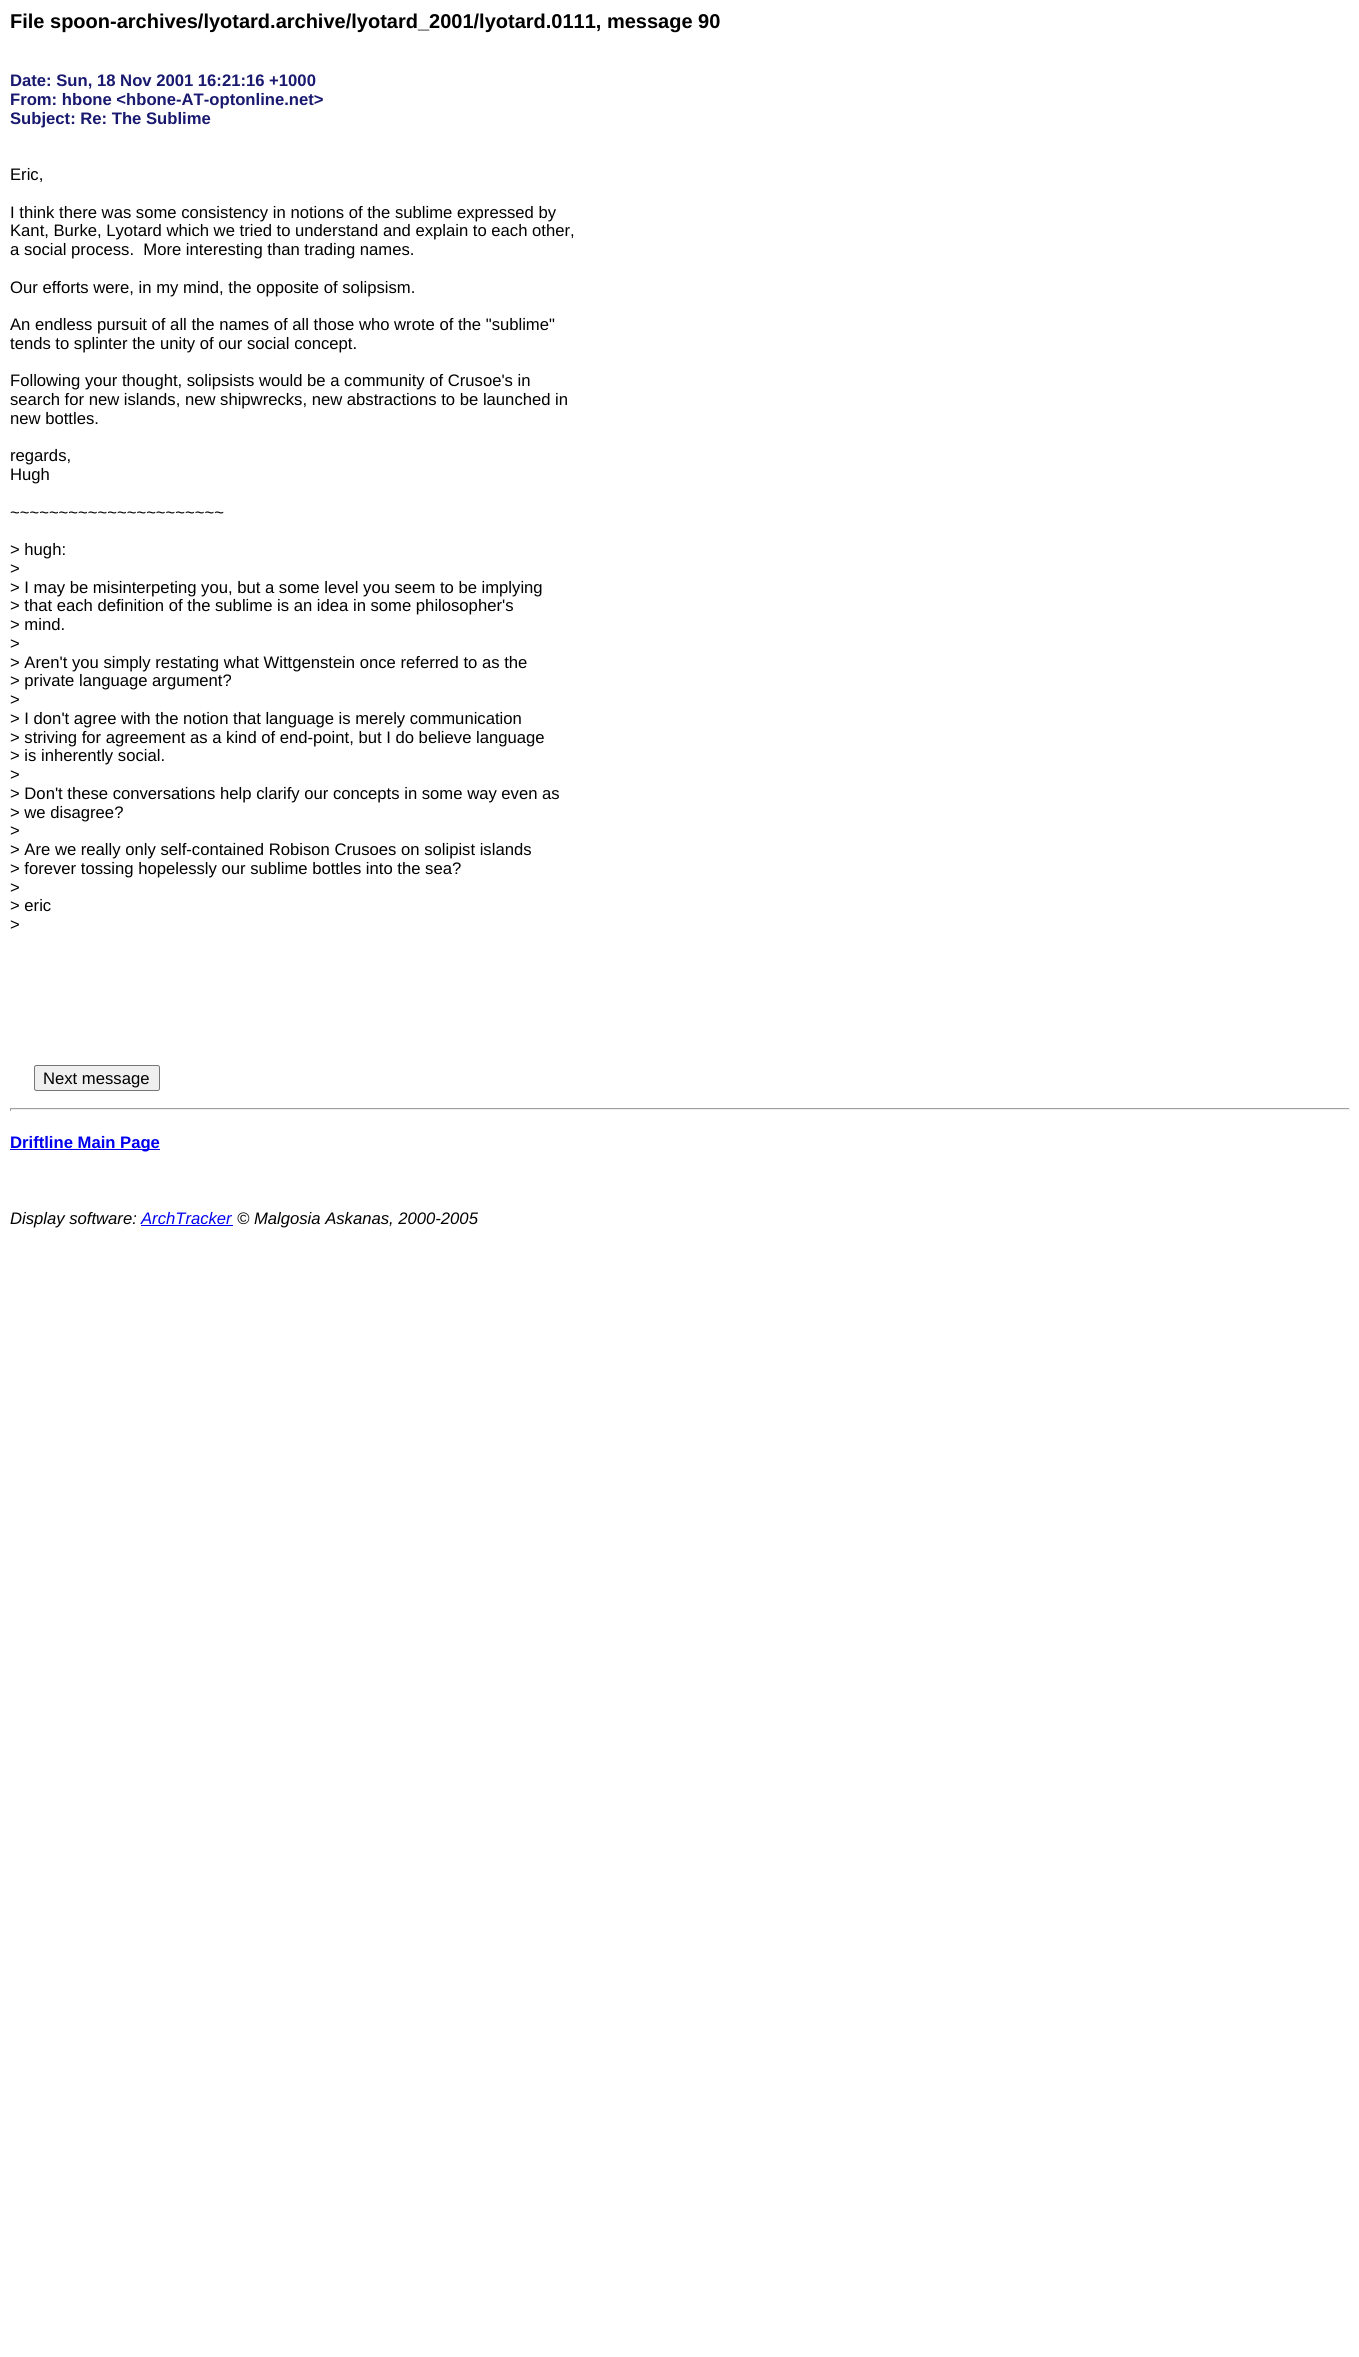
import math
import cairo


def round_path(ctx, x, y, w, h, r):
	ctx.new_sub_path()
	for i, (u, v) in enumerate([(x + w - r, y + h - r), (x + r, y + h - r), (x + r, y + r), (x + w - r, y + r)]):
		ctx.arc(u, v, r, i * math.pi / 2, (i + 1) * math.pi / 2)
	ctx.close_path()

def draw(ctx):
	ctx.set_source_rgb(1, 1, 1)
	ctx.paint()
	ctx.select_font_face('Liberation Sans', cairo.FONT_SLANT_NORMAL, cairo.FONT_WEIGHT_BOLD)
	ctx.set_font_size(20)
	ctx.set_source_rgb(0, 0, 0)
	ctx.move_to(10, 28)
	ctx.show_text('File spoon-archives/lyotard.archive/lyotard_2001/lyotard.0111, message 90')
	ctx.set_font_size(16.65)
	ctx.set_source_rgb(0.098, 0.098, 0.439)
	for x, y, s in [
		(10, 86, 'Date: Sun, 18 Nov 2001 16:21:16 +1000'),
		(10, 105, 'From: hbone <hbone-AT-optonline.net>'),
		(10, 124, 'Subject: Re: The Sublime'),
	]:
		ctx.move_to(x, y)
		ctx.show_text(s)
	ctx.select_font_face('Liberation Sans')
	ctx.set_source_rgb(0, 0, 0)
	for x, y, s in [
		(10, 180, 'Eric,'),
		(10, 218, 'I think there was some consistency in notions of the sublime expressed by'),
		(10, 236, 'Kant, Burke, Lyotard which we tried to understand and explain to each other,'),
		(10, 255, 'a social process.  More interesting than trading names.'),
		(10, 293, 'Our efforts were, in my mind, the opposite of solipsism.'),
		(10, 330, 'An endless pursuit of all the names of all those who wrote of the "sublime"'),
		(10, 349, 'tends to splinter the unity of our social concept.'),
		(10, 386, 'Following your thought, solipsists would be a community of Crusoe\'s in'),
		(10, 405, 'search for new islands, new shipwrecks, new abstractions to be launched in'),
		(10, 424, 'new bottles.'),
		(10, 461, 'regards,'),
		(10, 480, 'Hugh'),
		(10, 518, '~~~~~~~~~~~~~~~~~~~~~~'),
		(10, 555, '> hugh:'),
		(10, 574, '>'),
		(10, 593, '> I may be misinterpeting you, but a some level you seem to be implying'),
		(10, 611, '> that each definition of the sublime is an idea in some philosopher\'s'),
		(10, 630, '> mind.'),
		(10, 649, '>'),
		(10, 668, '> Aren\'t you simply restating what Wittgenstein once referred to as the'),
		(10, 686, '> private language argument?'),
		(10, 705, '>'),
		(10, 724, '> I don\'t agree with the notion that language is merely communication'),
		(10, 743, '> striving for agreement as a kind of end-point, but I do believe language'),
		(10, 761, '> is inherently social.'),
		(10, 780, '>'),
		(10, 799, '> Don\'t these conversations help clarify our concepts in some way even as'),
		(10, 818, '> we disagree?'),
		(10, 836, '>'),
		(10, 855, '> Are we really only self-contained Robison Crusoes on solipist islands'),
		(10, 874, '> forever tossing hopelessly our sublime bottles into the sea?'),
		(10, 893, '>'),
		(10, 911, '> eric'),
		(10, 930, '>'),
	]:
		ctx.move_to(x, y)
		ctx.show_text(s)
	ctx.set_source_rgb(0.937, 0.937, 0.937)
	round_path(ctx, 34.5, 1065.5, 125, 25, 2)
	ctx.fill_preserve()
	ctx.set_source_rgb(0.463, 0.463, 0.463)
	ctx.set_line_width(1)
	ctx.stroke()
	ctx.set_source_rgb(0, 0, 0)
	ctx.move_to(43, 1084)
	ctx.show_text('Next message')
	ctx.set_source_rgb(0.624, 0.624, 0.624)
	ctx.rectangle(10, 1108, 1340, 1)
	ctx.fill()
	ctx.set_source_rgb(0.933, 0.933, 0.933)
	ctx.rectangle(1349, 1108, 1, 3)
	ctx.rectangle(10, 1109, 1340, 1)
	ctx.fill()
	ctx.set_source_rgb(0.624, 0.624, 0.624)
	ctx.rectangle(10, 1108, 1, 3)
	ctx.fill()
	ctx.set_source_rgb(0, 0, 0.933)
	ctx.rectangle(10, 1149, 150, 1)
	ctx.fill()
	ctx.select_font_face('Liberation Sans', cairo.FONT_SLANT_NORMAL, cairo.FONT_WEIGHT_BOLD)
	ctx.move_to(10, 1148)
	ctx.show_text('Driftline Main Page')
	ctx.select_font_face('Liberation Sans', cairo.FONT_SLANT_ITALIC)
	ctx.set_source_rgb(0, 0, 0)
	ctx.move_to(10, 1224)
	ctx.show_text('Display software:')
	ctx.set_source_rgb(0, 0, 0.933)
	ctx.move_to(141, 1224)
	ctx.show_text('ArchTracker')
	ctx.rectangle(141, 1225, 92, 1)
	ctx.fill()
	ctx.set_source_rgb(0, 0, 0)
	ctx.move_to(237, 1224)
	ctx.show_text('© Malgosia Askanas, 2000-2005')


surface = cairo.ImageSurface(cairo.FORMAT_RGB24, 1359, 2357)
ctx = cairo.Context(surface)
options = cairo.FontOptions()
options.set_hint_metrics(cairo.HINT_METRICS_OFF)
options.set_hint_style(cairo.HINT_STYLE_NONE)
ctx.set_font_options(options)
ctx.set_miter_limit(4)
draw(ctx)
surface.write_to_png('image.png')
